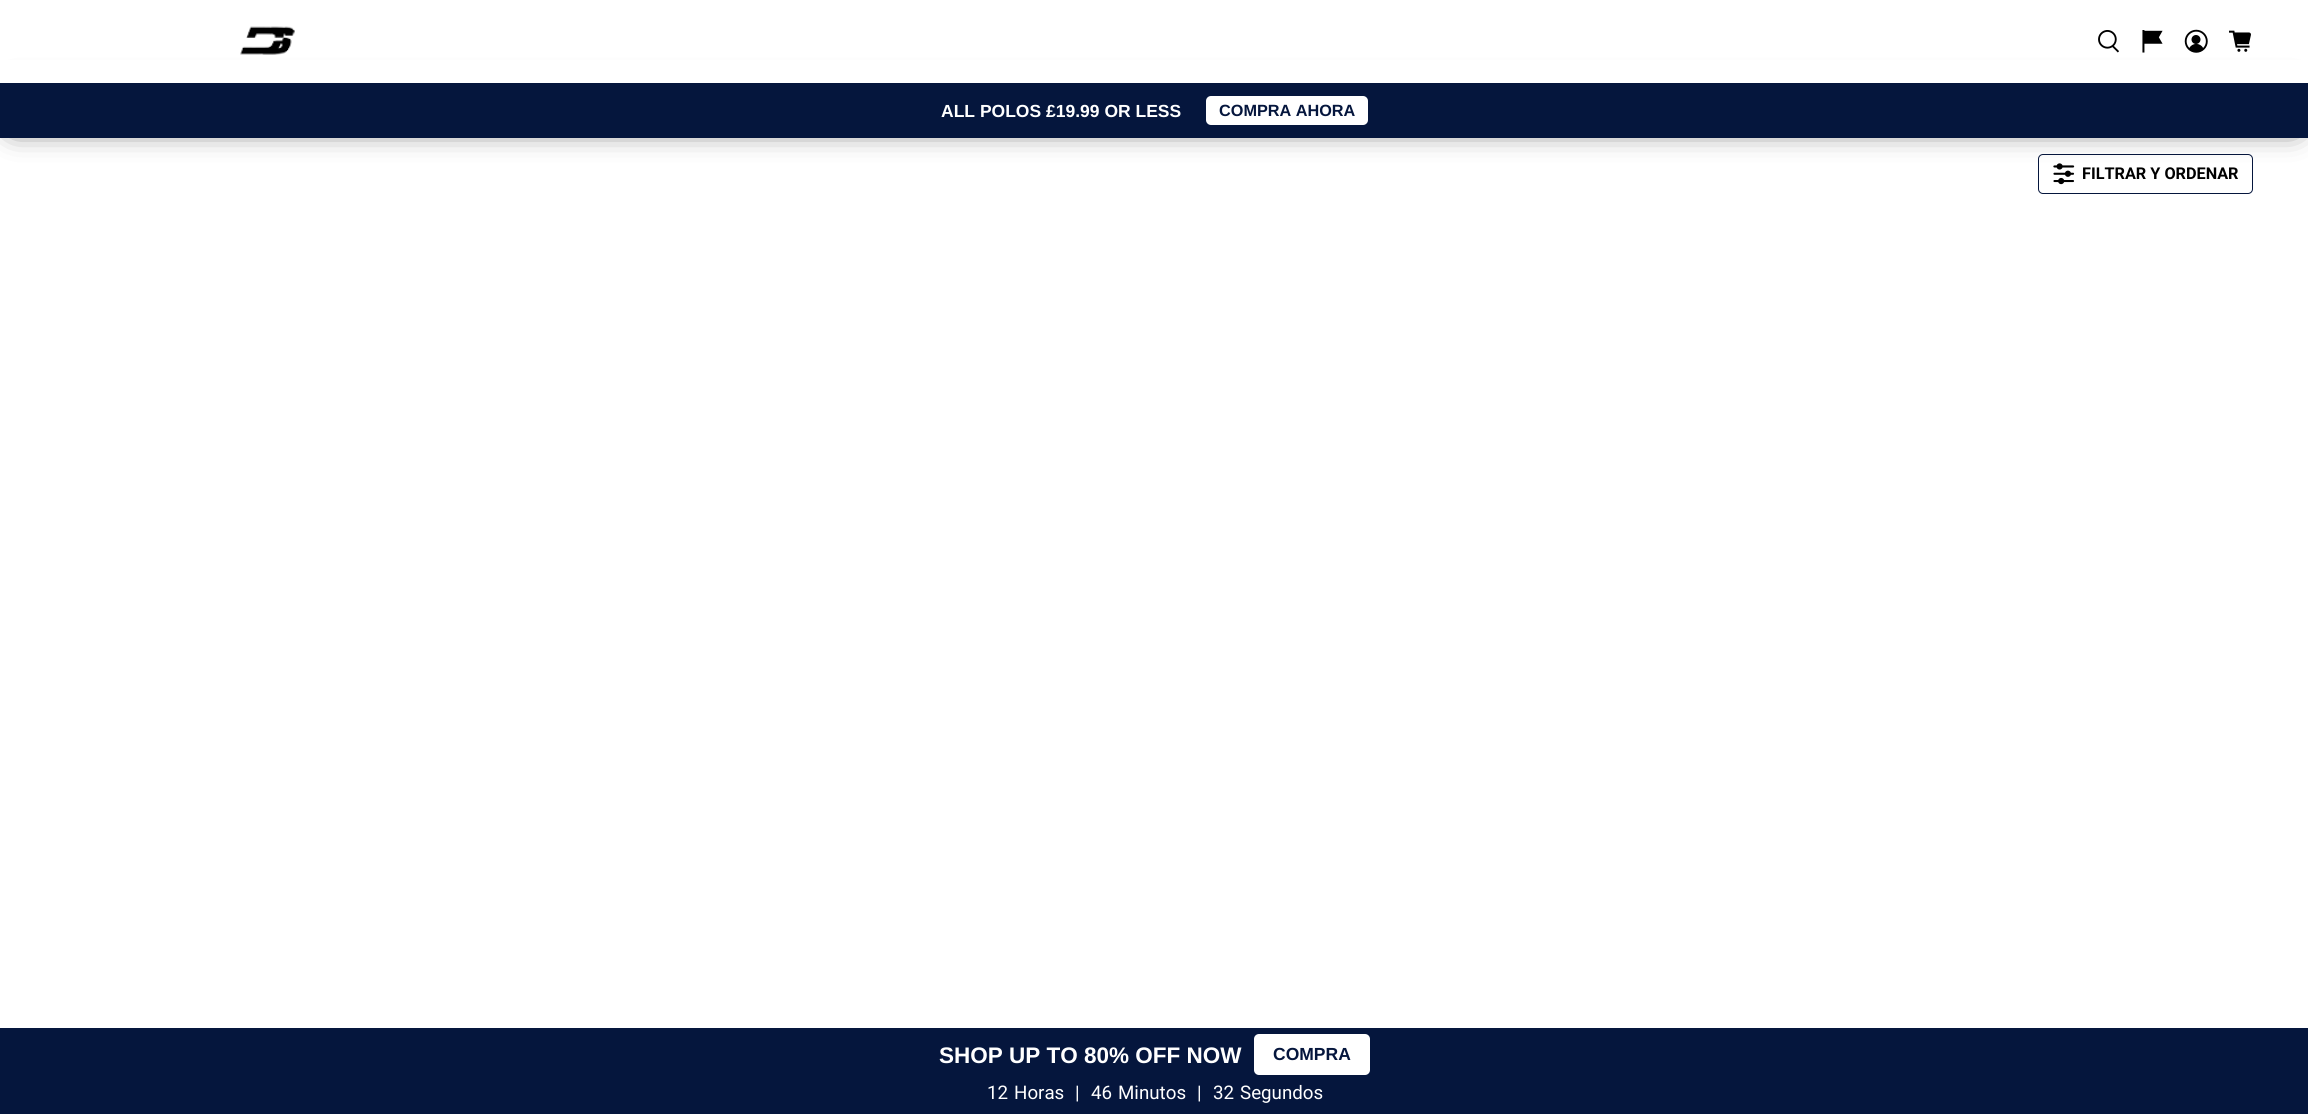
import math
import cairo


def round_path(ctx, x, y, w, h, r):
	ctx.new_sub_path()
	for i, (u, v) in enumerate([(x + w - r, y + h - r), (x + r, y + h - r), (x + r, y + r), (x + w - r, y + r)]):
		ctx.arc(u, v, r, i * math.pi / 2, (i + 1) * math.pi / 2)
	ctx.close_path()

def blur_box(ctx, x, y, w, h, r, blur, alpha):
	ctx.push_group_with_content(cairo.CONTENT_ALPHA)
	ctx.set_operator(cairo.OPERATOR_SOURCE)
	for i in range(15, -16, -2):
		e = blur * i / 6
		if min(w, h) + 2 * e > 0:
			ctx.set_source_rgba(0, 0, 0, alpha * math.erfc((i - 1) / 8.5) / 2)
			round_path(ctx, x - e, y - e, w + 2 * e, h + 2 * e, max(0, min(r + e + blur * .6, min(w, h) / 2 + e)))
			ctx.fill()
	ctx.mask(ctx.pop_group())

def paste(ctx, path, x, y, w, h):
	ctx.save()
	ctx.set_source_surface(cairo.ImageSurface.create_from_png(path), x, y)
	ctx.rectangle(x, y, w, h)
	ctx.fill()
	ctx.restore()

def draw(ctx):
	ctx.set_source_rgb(1, 1, 1)
	ctx.paint()
	round_path(ctx, 2038.5, 154.5, 214, 39, 4.5)
	ctx.set_source_rgb(0.02, 0.086, 0.239)
	ctx.set_line_width(1)
	ctx.stroke()
	paste(ctx, 'media/6.png', 2053, 163, 22, 22)
	ctx.set_source_rgb(0, 0, 0)
	blur_box(ctx, 14, 96, 2281, 28, 0, 15.5, 1)
	ctx.set_source_rgb(1, 1, 1)
	ctx.rectangle(0, 60, 2308, 23)
	ctx.fill()
	paste(ctx, 'media/1.png', 240, 26, 55, 29)
	paste(ctx, 'media/2.png', 2098, 30, 21, 23)
	paste(ctx, 'media/3.png', 2142, 30, 21, 23)
	paste(ctx, 'media/4.png', 2184, 29, 24, 24)
	paste(ctx, 'media/5.png', 2229, 30, 22, 22)
	ctx.set_source_rgb(0.02, 0.086, 0.239)
	ctx.rectangle(0, 83, 2308, 55)
	ctx.fill()
	ctx.select_font_face('Liberation Sans', cairo.FONT_SLANT_NORMAL, cairo.FONT_WEIGHT_BOLD)
	ctx.set_font_size(17.5)
	ctx.set_source_rgb(1, 1, 1)
	ctx.move_to(941, 117)
	ctx.show_text('ALL POLOS £19.99 OR LESS')
	round_path(ctx, 1206, 96, 162, 29, 5)
	ctx.fill()
	ctx.set_font_size(16.25)
	ctx.set_source_rgb(0.02, 0.086, 0.239)
	ctx.move_to(1219, 116)
	ctx.show_text('COMPRA AHORA')
	ctx.select_font_face('Roboto', cairo.FONT_SLANT_NORMAL, cairo.FONT_WEIGHT_BOLD)
	ctx.set_source_rgb(0, 0, 0)
	ctx.move_to(2082, 179)
	ctx.show_text('FILTRAR Y ORDENAR')
	ctx.set_source_rgb(0.02, 0.086, 0.239)
	ctx.rectangle(0, 1028, 2308, 86)
	ctx.fill()
	ctx.select_font_face('Liberation Sans', cairo.FONT_SLANT_NORMAL, cairo.FONT_WEIGHT_BOLD)
	ctx.set_font_size(22.5)
	ctx.set_source_rgb(1, 1, 1)
	ctx.move_to(939, 1063)
	ctx.show_text('SHOP UP TO 80% OFF NOW')
	round_path(ctx, 1254, 1034, 116, 41, 5)
	ctx.fill()
	ctx.set_font_size(17.5)
	ctx.set_source_rgb(0.02, 0.086, 0.239)
	ctx.move_to(1273, 1060)
	ctx.show_text('COMPRA')
	ctx.select_font_face('Roboto')
	ctx.set_font_size(18.75)
	ctx.set_source_rgb(1, 1, 1)
	for x, y, s in [
		(987, 1099, '12'),
		(1014, 1099, 'Horas'),
		(1075, 1099, '|'),
		(1091, 1099, '46'),
		(1118, 1099, 'Minutos'),
		(1197, 1099, '|'),
		(1213, 1099, '32'),
		(1240, 1099, 'Segundos'),
	]:
		ctx.move_to(x, y)
		ctx.show_text(s)


surface = cairo.ImageSurface(cairo.FORMAT_RGB24, 2308, 1114)
ctx = cairo.Context(surface)
options = cairo.FontOptions()
options.set_hint_metrics(cairo.HINT_METRICS_OFF)
options.set_hint_style(cairo.HINT_STYLE_NONE)
ctx.set_font_options(options)
ctx.set_miter_limit(4)
draw(ctx)
surface.write_to_png('image.png')
